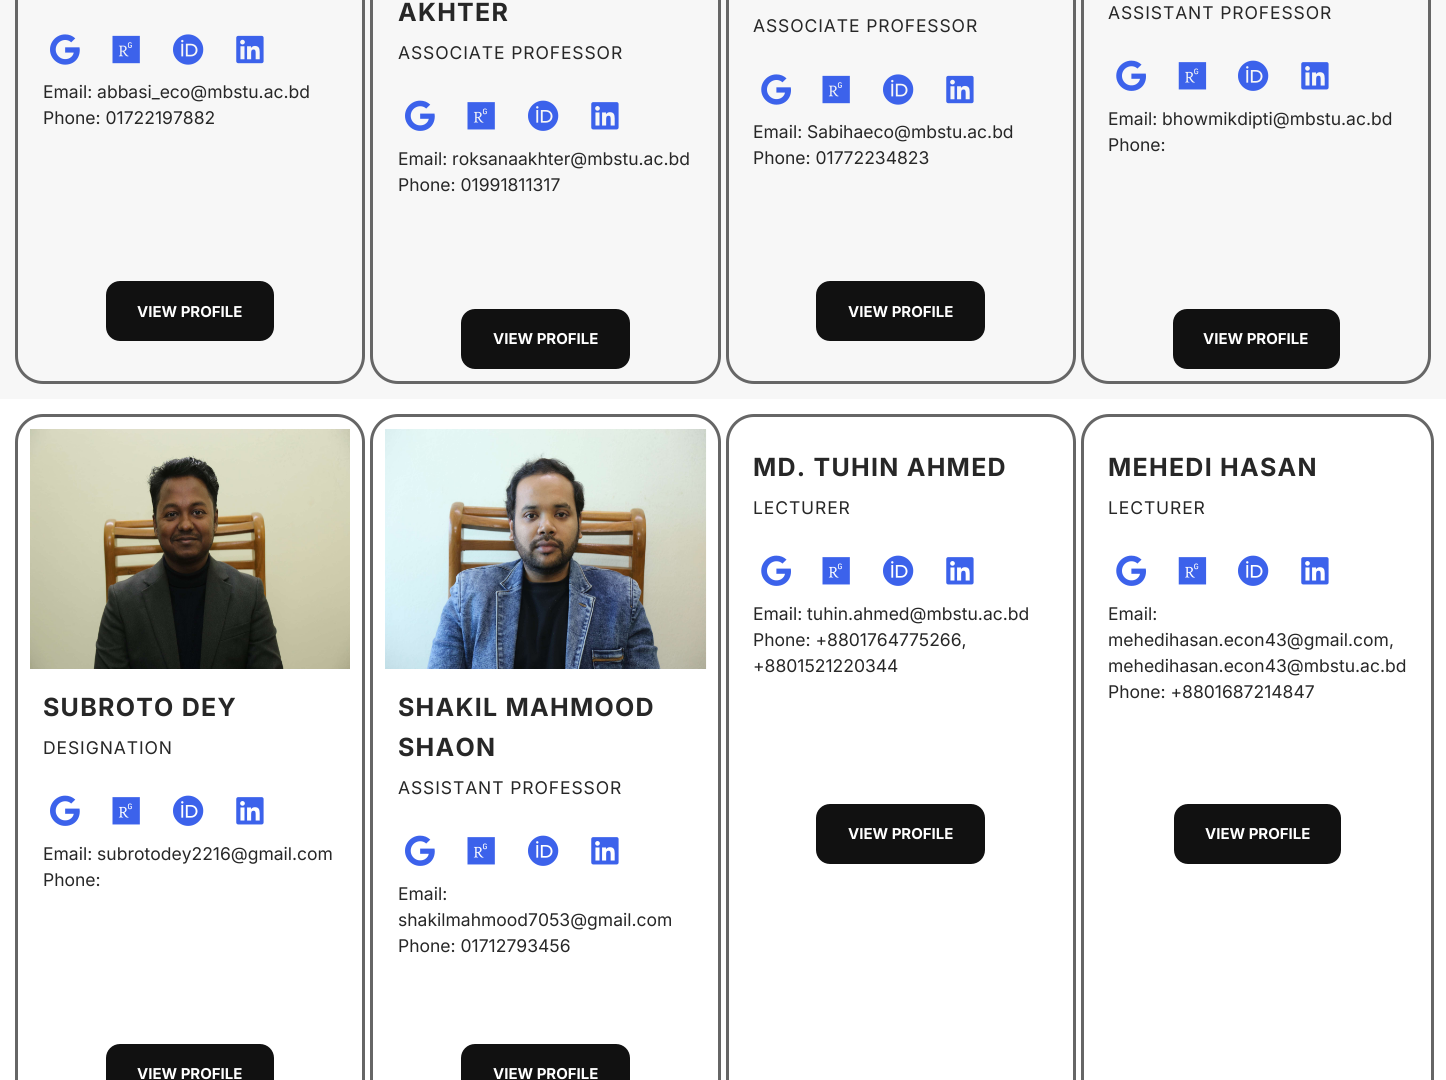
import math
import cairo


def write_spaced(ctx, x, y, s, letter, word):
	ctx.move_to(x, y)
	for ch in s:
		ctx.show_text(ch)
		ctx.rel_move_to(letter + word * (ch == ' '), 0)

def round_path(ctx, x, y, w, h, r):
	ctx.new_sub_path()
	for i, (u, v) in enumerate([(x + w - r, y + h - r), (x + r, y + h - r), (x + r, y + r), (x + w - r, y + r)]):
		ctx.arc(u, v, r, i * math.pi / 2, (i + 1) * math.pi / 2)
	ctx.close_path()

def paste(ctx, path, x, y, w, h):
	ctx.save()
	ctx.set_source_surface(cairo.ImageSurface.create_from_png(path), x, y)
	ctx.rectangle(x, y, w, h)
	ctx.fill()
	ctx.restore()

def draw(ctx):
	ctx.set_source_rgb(1, 1, 1)
	ctx.paint()
	ctx.set_source_rgb(0.965, 0.965, 0.965)
	ctx.rectangle(0, 0, 1446, 399)
	ctx.fill()
	round_path(ctx, 16.5, -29.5, 347, 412, 26.5)
	ctx.set_source_rgb(0.4, 0.4, 0.4)
	ctx.set_line_width(3)
	ctx.stroke()
	paste(ctx, 'media/1.png', 50, 34, 30, 31)
	paste(ctx, 'media/2.png', 112, 35, 28, 29)
	paste(ctx, 'media/3.png', 173, 34, 31, 31)
	paste(ctx, 'media/4.png', 236, 35, 28, 29)
	ctx.select_font_face('Inter')
	ctx.set_font_size(17.5)
	ctx.set_source_rgb(0.153, 0.153, 0.153)
	ctx.move_to(43, 98)
	ctx.show_text('Email: abbasi_eco@mbstu.ac.bd')
	ctx.move_to(43, 124)
	ctx.show_text('Phone: 01722197882')
	ctx.set_source_rgb(0.067, 0.067, 0.067)
	round_path(ctx, 106, 281, 168, 60, 14)
	ctx.fill()
	ctx.select_font_face('Inter', cairo.FONT_SLANT_NORMAL, cairo.FONT_WEIGHT_BOLD)
	ctx.set_font_size(15)
	ctx.set_source_rgb(1, 1, 1)
	ctx.move_to(137, 317)
	ctx.show_text('VIEW PROFILE')
	round_path(ctx, 371.5, -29.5, 348, 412, 26.5)
	ctx.set_source_rgb(0.4, 0.4, 0.4)
	ctx.stroke()
	ctx.set_font_size(25)
	ctx.set_source_rgb(0.153, 0.153, 0.153)
	write_spaced(ctx, 398, 21, 'AKHTER', 1.25, 0)
	ctx.select_font_face('Inter')
	ctx.set_font_size(17.5)
	write_spaced(ctx, 398, 59, 'ASSOCIATE PROFESSOR', 0.9, 0)
	paste(ctx, 'media/5.png', 405, 100, 30, 31)
	paste(ctx, 'media/6.png', 467, 102, 28, 28)
	paste(ctx, 'media/7.png', 528, 100, 31, 31)
	paste(ctx, 'media/8.png', 591, 102, 28, 28)
	ctx.move_to(398, 165)
	ctx.show_text('Email: roksanaakhter@mbstu.ac.bd')
	ctx.move_to(398, 191)
	ctx.show_text('Phone: 01991811317')
	ctx.set_source_rgb(0.067, 0.067, 0.067)
	round_path(ctx, 461, 309, 169, 60, 14)
	ctx.fill()
	ctx.select_font_face('Inter', cairo.FONT_SLANT_NORMAL, cairo.FONT_WEIGHT_BOLD)
	ctx.set_font_size(15)
	ctx.set_source_rgb(1, 1, 1)
	ctx.move_to(493, 344)
	ctx.show_text('VIEW PROFILE')
	round_path(ctx, 727.5, -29.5, 347, 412, 26.5)
	ctx.set_source_rgb(0.4, 0.4, 0.4)
	ctx.stroke()
	ctx.select_font_face('Inter')
	ctx.set_font_size(17.5)
	ctx.set_source_rgb(0.153, 0.153, 0.153)
	write_spaced(ctx, 753, 32, 'ASSOCIATE PROFESSOR', 0.9, 0)
	paste(ctx, 'media/9.png', 761, 74, 30, 31)
	paste(ctx, 'media/2.png', 822, 75, 28, 29)
	paste(ctx, 'media/3.png', 883, 74, 31, 31)
	paste(ctx, 'media/4.png', 946, 75, 28, 29)
	ctx.move_to(753, 138)
	ctx.show_text('Email: Sabihaeco@mbstu.ac.bd')
	ctx.move_to(753, 164)
	ctx.show_text('Phone: 01772234823')
	ctx.set_source_rgb(0.067, 0.067, 0.067)
	round_path(ctx, 816, 281, 169, 60, 14)
	ctx.fill()
	ctx.select_font_face('Inter', cairo.FONT_SLANT_NORMAL, cairo.FONT_WEIGHT_BOLD)
	ctx.set_font_size(15)
	ctx.set_source_rgb(1, 1, 1)
	ctx.move_to(848, 317)
	ctx.show_text('VIEW PROFILE')
	round_path(ctx, 1082.5, -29.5, 347, 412, 26.5)
	ctx.set_source_rgb(0.4, 0.4, 0.4)
	ctx.stroke()
	ctx.select_font_face('Inter')
	ctx.set_font_size(17.5)
	ctx.set_source_rgb(0.153, 0.153, 0.153)
	write_spaced(ctx, 1108, 19, 'ASSISTANT PROFESSOR', 0.9, 0)
	paste(ctx, 'media/10.png', 1116, 60, 30, 31)
	paste(ctx, 'media/11.png', 1178, 62, 29, 28)
	paste(ctx, 'media/7.png', 1238, 60, 31, 31)
	paste(ctx, 'media/8.png', 1301, 62, 28, 28)
	ctx.move_to(1108, 125)
	ctx.show_text('Email: bhowmikdipti@mbstu.ac.bd')
	ctx.move_to(1108, 151)
	ctx.show_text('Phone:')
	ctx.set_source_rgb(0.067, 0.067, 0.067)
	round_path(ctx, 1173, 309, 167, 60, 14)
	ctx.fill()
	ctx.select_font_face('Inter', cairo.FONT_SLANT_NORMAL, cairo.FONT_WEIGHT_BOLD)
	ctx.set_font_size(15)
	ctx.set_source_rgb(1, 1, 1)
	ctx.move_to(1203, 344)
	ctx.show_text('VIEW PROFILE')
	round_path(ctx, 727.5, 415.5, 347, 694, 26.5)
	ctx.set_source_rgb(0.4, 0.4, 0.4)
	ctx.stroke()
	ctx.set_font_size(25)
	ctx.set_source_rgb(0.153, 0.153, 0.153)
	write_spaced(ctx, 753, 476, 'MD. TUHIN AHMED', 1.25, 0)
	ctx.select_font_face('Inter')
	ctx.set_font_size(17.5)
	write_spaced(ctx, 753, 514, 'LECTURER', 0.9, 0)
	paste(ctx, 'media/12.png', 761, 555, 30, 31)
	paste(ctx, 'media/13.png', 822, 557, 28, 28)
	paste(ctx, 'media/14.png', 883, 555, 31, 31)
	paste(ctx, 'media/15.png', 946, 557, 28, 28)
	for x, y, s in [
		(753, 620, 'Email: tuhin.ahmed@mbstu.ac.bd'),
		(753, 646, 'Phone: +8801764775266,'),
		(753, 672, '+8801521220344'),
	]:
		ctx.move_to(x, y)
		ctx.show_text(s)
	ctx.set_source_rgb(0.067, 0.067, 0.067)
	round_path(ctx, 816, 804, 169, 60, 14)
	ctx.fill()
	ctx.select_font_face('Inter', cairo.FONT_SLANT_NORMAL, cairo.FONT_WEIGHT_BOLD)
	ctx.set_font_size(15)
	ctx.set_source_rgb(1, 1, 1)
	ctx.move_to(848, 839)
	ctx.show_text('VIEW PROFILE')
	round_path(ctx, 1082.5, 415.5, 350, 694, 26.5)
	ctx.set_source_rgb(0.4, 0.4, 0.4)
	ctx.stroke()
	ctx.set_font_size(25)
	ctx.set_source_rgb(0.153, 0.153, 0.153)
	write_spaced(ctx, 1108, 476, 'MEHEDI HASAN', 1.25, 0)
	ctx.select_font_face('Inter')
	ctx.set_font_size(17.5)
	write_spaced(ctx, 1108, 514, 'LECTURER', 0.9, 0)
	paste(ctx, 'media/12.png', 1116, 555, 30, 31)
	paste(ctx, 'media/16.png', 1178, 557, 29, 28)
	paste(ctx, 'media/14.png', 1238, 555, 31, 31)
	paste(ctx, 'media/15.png', 1301, 557, 28, 28)
	for x, y, s in [
		(1108, 620, 'Email:'),
		(1108, 646, 'mehedihasan.econ43@gmail.com,'),
		(1108, 672, 'mehedihasan.econ43@mbstu.ac.bd'),
		(1108, 698, 'Phone: +8801687214847'),
	]:
		ctx.move_to(x, y)
		ctx.show_text(s)
	ctx.set_source_rgb(0.067, 0.067, 0.067)
	round_path(ctx, 1174, 804, 167, 60, 14)
	ctx.fill()
	ctx.select_font_face('Inter', cairo.FONT_SLANT_NORMAL, cairo.FONT_WEIGHT_BOLD)
	ctx.set_font_size(15)
	ctx.set_source_rgb(1, 1, 1)
	ctx.move_to(1205, 839)
	ctx.show_text('VIEW PROFILE')
	round_path(ctx, 16.5, 415.5, 347, 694, 26.5)
	ctx.set_source_rgb(0.4, 0.4, 0.4)
	ctx.stroke()
	paste(ctx, 'media/17.png', 30, 429, 320, 240)
	ctx.set_font_size(25)
	ctx.set_source_rgb(0.153, 0.153, 0.153)
	write_spaced(ctx, 43, 716, 'SUBROTO DEY', 1.25, 0)
	ctx.select_font_face('Inter')
	ctx.set_font_size(17.5)
	write_spaced(ctx, 43, 754, 'DESIGNATION', 0.9, 0)
	paste(ctx, 'media/18.png', 50, 795, 30, 31)
	paste(ctx, 'media/13.png', 112, 797, 28, 28)
	paste(ctx, 'media/14.png', 173, 795, 31, 31)
	paste(ctx, 'media/15.png', 236, 797, 28, 28)
	ctx.move_to(43, 860)
	ctx.show_text('Email: subrotodey2216@gmail.com')
	ctx.move_to(43, 886)
	ctx.show_text('Phone:')
	ctx.set_source_rgb(0.067, 0.067, 0.067)
	round_path(ctx, 106, 1044, 168, 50, 14)
	ctx.fill()
	ctx.select_font_face('Inter', cairo.FONT_SLANT_NORMAL, cairo.FONT_WEIGHT_BOLD)
	ctx.set_font_size(15)
	ctx.set_source_rgb(1, 1, 1)
	ctx.move_to(137, 1079)
	ctx.show_text('VIEW PROFILE')
	round_path(ctx, 371.5, 415.5, 348, 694, 26.5)
	ctx.set_source_rgb(0.4, 0.4, 0.4)
	ctx.stroke()
	paste(ctx, 'media/19.png', 385, 429, 322, 240)
	ctx.set_font_size(25)
	ctx.set_source_rgb(0.153, 0.153, 0.153)
	write_spaced(ctx, 398, 716, 'SHAKIL MAHMOOD', 1.25, 0)
	write_spaced(ctx, 398, 756, 'SHAON', 1.25, 0)
	ctx.select_font_face('Inter')
	ctx.set_font_size(17.5)
	write_spaced(ctx, 398, 794, 'ASSISTANT PROFESSOR', 0.9, 0)
	paste(ctx, 'media/18.png', 405, 835, 30, 31)
	paste(ctx, 'media/13.png', 467, 837, 28, 28)
	paste(ctx, 'media/14.png', 528, 835, 31, 31)
	paste(ctx, 'media/15.png', 591, 837, 28, 28)
	for x, y, s in [
		(398, 900, 'Email:'),
		(398, 926, 'shakilmahmood7053@gmail.com'),
		(398, 952, 'Phone: 01712793456'),
	]:
		ctx.move_to(x, y)
		ctx.show_text(s)
	ctx.set_source_rgb(0.067, 0.067, 0.067)
	round_path(ctx, 461, 1044, 169, 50, 14)
	ctx.fill()
	ctx.select_font_face('Inter', cairo.FONT_SLANT_NORMAL, cairo.FONT_WEIGHT_BOLD)
	ctx.set_font_size(15)
	ctx.set_source_rgb(1, 1, 1)
	ctx.move_to(493, 1079)
	ctx.show_text('VIEW PROFILE')


surface = cairo.ImageSurface(cairo.FORMAT_RGB24, 1446, 1080)
ctx = cairo.Context(surface)
options = cairo.FontOptions()
options.set_hint_metrics(cairo.HINT_METRICS_OFF)
options.set_hint_style(cairo.HINT_STYLE_NONE)
ctx.set_font_options(options)
ctx.set_miter_limit(4)
draw(ctx)
surface.write_to_png('image.png')
